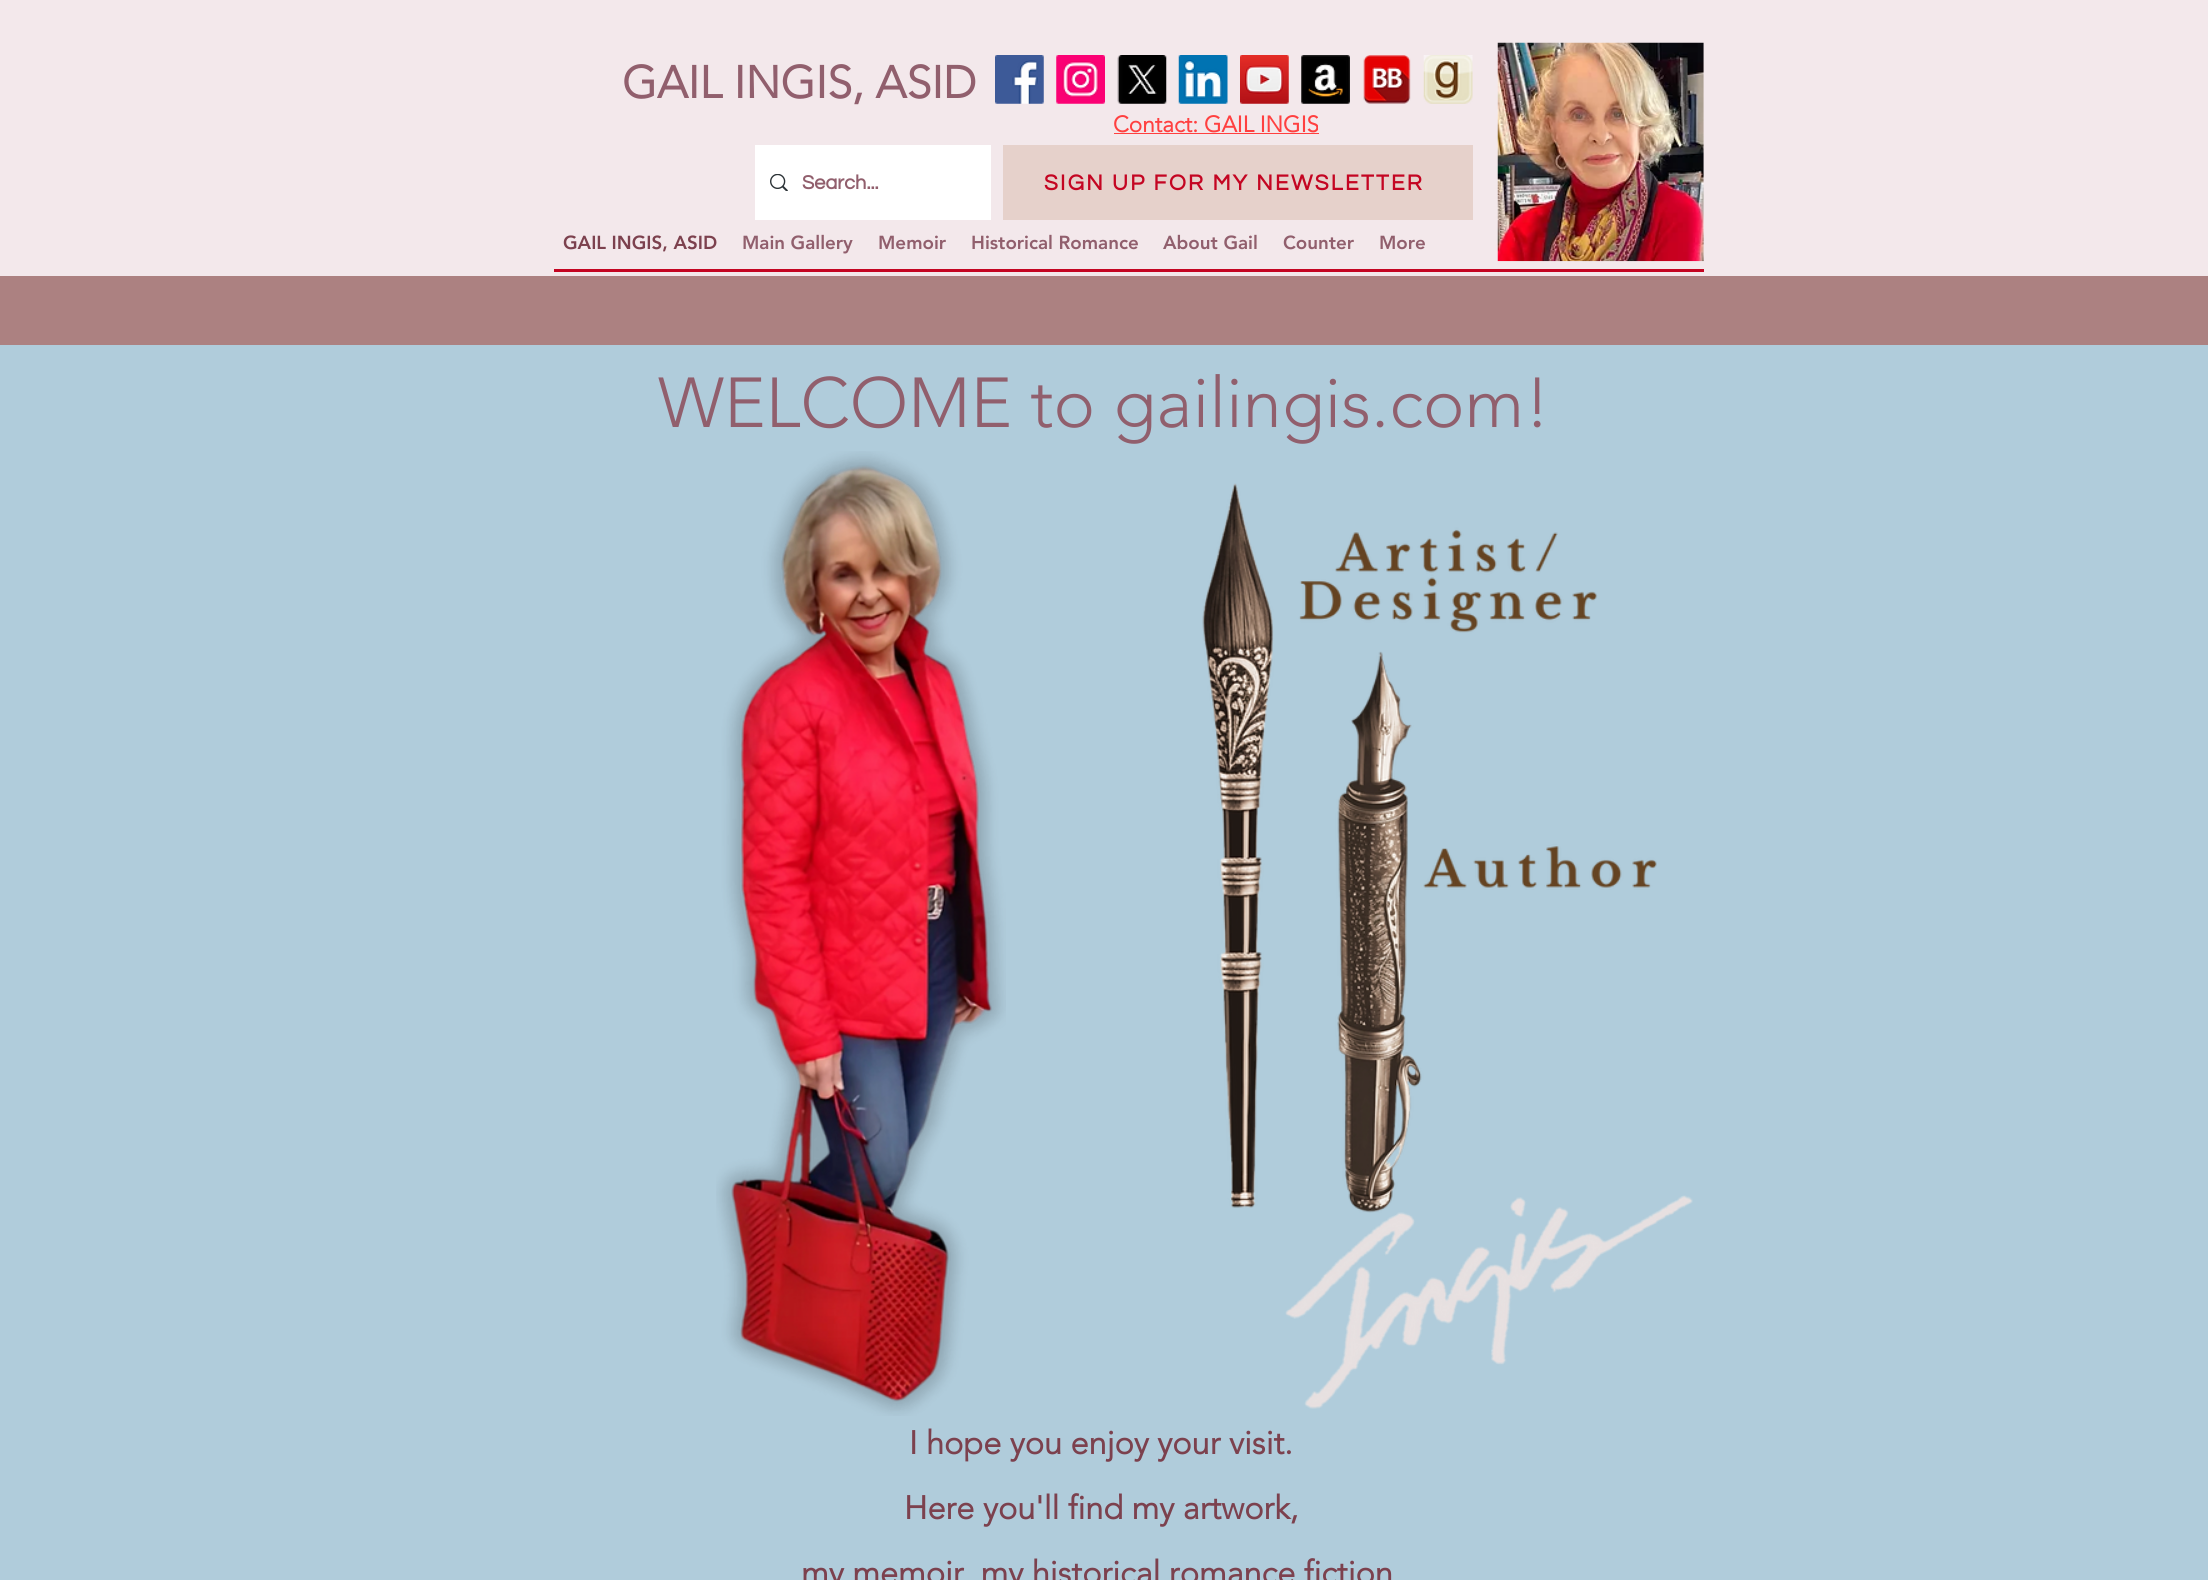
import math
import cairo


def write_spaced(ctx, x, y, s, letter, word):
	ctx.move_to(x, y)
	for ch in s:
		ctx.show_text(ch)
		ctx.rel_move_to(letter + word * (ch == ' '), 0)

def paste(ctx, path, x, y, w, h):
	ctx.save()
	ctx.set_source_surface(cairo.ImageSurface.create_from_png(path), x, y)
	ctx.rectangle(x, y, w, h)
	ctx.fill()
	ctx.restore()

def draw(ctx):
	ctx.set_source_rgb(0.69, 0.8, 0.859)
	ctx.paint()
	ctx.set_source_rgb(0.953, 0.91, 0.918)
	ctx.rectangle(0, 0, 2208, 276)
	ctx.fill()
	ctx.select_font_face('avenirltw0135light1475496', cairo.FONT_SLANT_NORMAL, cairo.FONT_WEIGHT_BOLD)
	ctx.set_font_size(45)
	ctx.set_source_rgb(0.569, 0.373, 0.427)
	ctx.move_to(622, 98)
	ctx.show_text('GAIL INGIS, ASID')
	paste(ctx, 'media/1.png', 995, 55, 49, 49)
	paste(ctx, 'media/2.png', 1056, 55, 49, 49)
	paste(ctx, 'media/3.png', 1117, 55, 50, 49)
	paste(ctx, 'media/4.png', 1178, 55, 50, 49)
	paste(ctx, 'media/5.png', 1240, 55, 49, 49)
	paste(ctx, 'media/6.png', 1301, 55, 49, 49)
	paste(ctx, 'media/7.png', 1363, 55, 48, 49)
	paste(ctx, 'media/8.png', 1423, 55, 50, 49)
	paste(ctx, 'media/9.png', 1497, 42, 207, 220)
	ctx.set_font_size(22.5)
	ctx.set_source_rgb(1, 0.251, 0.251)
	ctx.move_to(1113, 132)
	ctx.show_text('Contact: GAIL INGIS')
	ctx.rectangle(1114, 133, 205, 1)
	ctx.fill()
	ctx.set_source_rgb(1, 1, 1)
	ctx.rectangle(755, 145, 236, 75)
	ctx.fill()
	paste(ctx, 'media/10.png', 770, 174, 18, 17)
	ctx.select_font_face('Questrial', cairo.FONT_SLANT_NORMAL, cairo.FONT_WEIGHT_BOLD)
	ctx.set_font_size(20)
	ctx.set_source_rgb(0.569, 0.373, 0.427)
	ctx.move_to(802, 189)
	ctx.show_text('Search...')
	ctx.set_source_rgb(0.902, 0.82, 0.796)
	ctx.rectangle(1003, 145, 470, 75)
	ctx.fill()
	ctx.set_font_size(22.5)
	ctx.set_source_rgb(0.769, 0.02, 0.133)
	write_spaced(ctx, 1044, 190, 'SIGN UP FOR MY NEWSLETTER', 2.25, 0)
	ctx.select_font_face('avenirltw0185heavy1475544 Black')
	ctx.set_font_size(18.75)
	ctx.set_source_rgb(0.486, 0.255, 0.306)
	ctx.move_to(563, 249)
	ctx.show_text('GAIL INGIS, ASID')
	ctx.set_source_rgb(0.569, 0.373, 0.427)
	for x, y, s in [
		(742, 249, 'Main Gallery'),
		(878, 249, 'Memoir'),
		(971, 249, 'Historical Romance'),
		(1163, 249, 'About Gail'),
		(1283, 249, 'Counter'),
		(1379, 249, 'More'),
	]:
		ctx.move_to(x, y)
		ctx.show_text(s)
	ctx.set_source_rgb(0.769, 0.02, 0.133)
	ctx.rectangle(554, 269, 1150, 3)
	ctx.fill()
	ctx.set_source_rgb(0.675, 0.506, 0.506)
	ctx.rectangle(0, 276, 2208, 69)
	ctx.fill()
	ctx.select_font_face('avenirltw0135light1475496 Light')
	ctx.set_font_size(70)
	ctx.set_source_rgb(0.569, 0.373, 0.427)
	ctx.move_to(658, 427)
	ctx.show_text('WELCOME to gailingis.com!')
	paste(ctx, 'media/11.png', 716, 451, 290, 965)
	paste(ctx, 'media/12.png', 1202, 483, 455, 730)
	paste(ctx, 'media/13.png', 1285, 1195, 408, 214)
	ctx.select_font_face('avenirltw0135light1475496', cairo.FONT_SLANT_NORMAL, cairo.FONT_WEIGHT_BOLD)
	ctx.set_font_size(32.5)
	ctx.set_source_rgb(0.486, 0.255, 0.306)
	for x, y, s in [
		(909, 1454, 'I hope you enjoy your visit.'),
		(904, 1519, 'Here you\'ll find my artwork,'),
		(801, 1584, 'my memoir, my historical romance fiction'),
	]:
		ctx.move_to(x, y)
		ctx.show_text(s)


surface = cairo.ImageSurface(cairo.FORMAT_RGB24, 2208, 1580)
ctx = cairo.Context(surface)
options = cairo.FontOptions()
options.set_hint_metrics(cairo.HINT_METRICS_OFF)
options.set_hint_style(cairo.HINT_STYLE_NONE)
ctx.set_font_options(options)
ctx.set_miter_limit(4)
draw(ctx)
surface.write_to_png('image.png')
